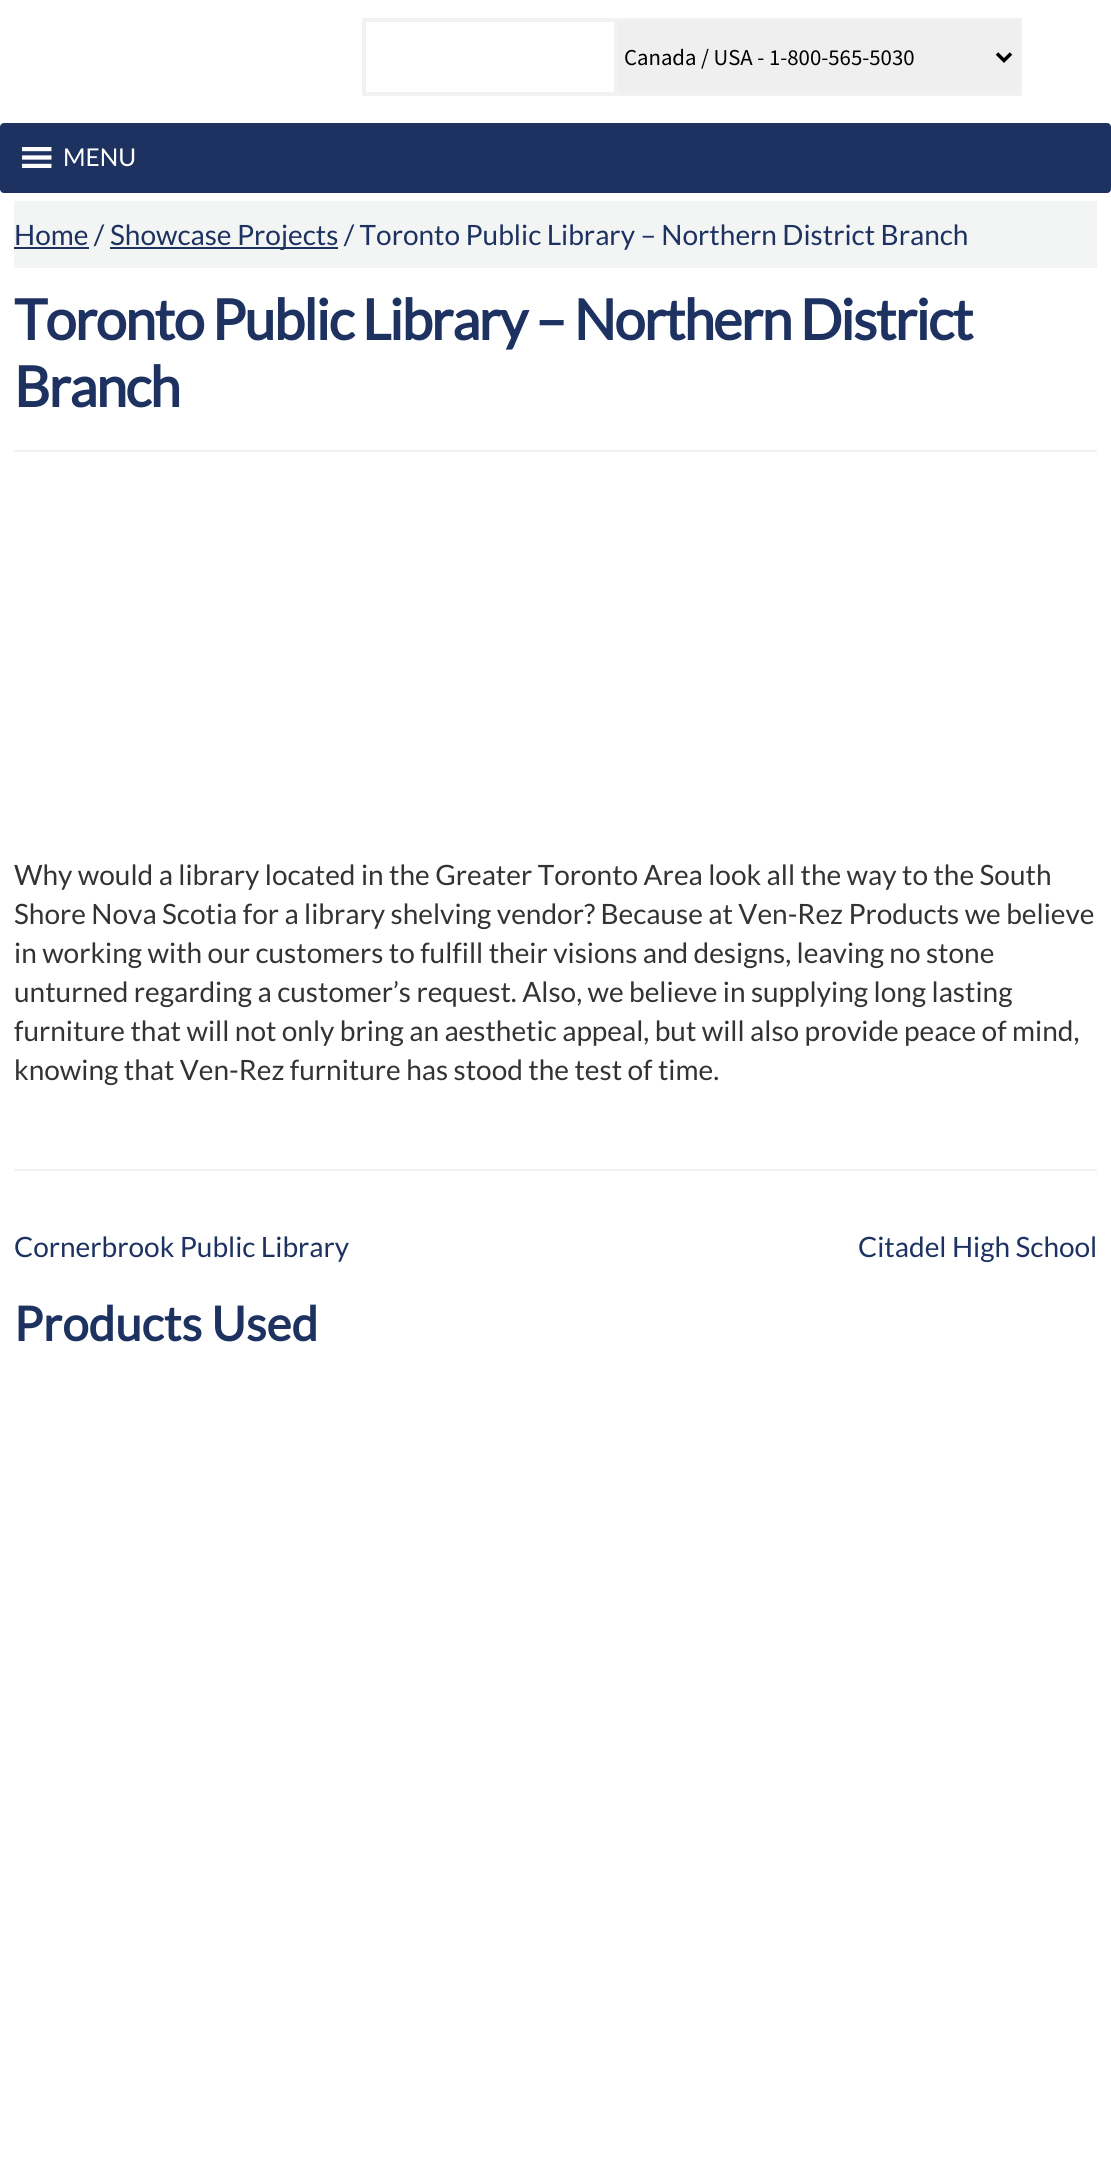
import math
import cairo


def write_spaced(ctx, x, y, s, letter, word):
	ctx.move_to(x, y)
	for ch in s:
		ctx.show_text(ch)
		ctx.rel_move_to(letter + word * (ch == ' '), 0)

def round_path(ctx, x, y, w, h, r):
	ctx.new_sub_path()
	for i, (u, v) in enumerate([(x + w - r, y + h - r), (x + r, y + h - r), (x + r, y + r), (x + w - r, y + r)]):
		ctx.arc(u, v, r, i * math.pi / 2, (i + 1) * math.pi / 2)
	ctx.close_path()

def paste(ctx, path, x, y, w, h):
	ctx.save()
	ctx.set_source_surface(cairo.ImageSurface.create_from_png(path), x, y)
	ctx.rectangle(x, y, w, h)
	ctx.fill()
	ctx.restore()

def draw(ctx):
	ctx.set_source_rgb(1, 1, 1)
	ctx.paint()
	ctx.rectangle(364, 20, 656, 74)
	ctx.set_source_rgb(0.949, 0.949, 0.949)
	ctx.set_line_width(4)
	ctx.stroke()
	ctx.set_source_rgb(0.937, 0.937, 0.937)
	ctx.rectangle(618, 21, 401, 72)
	ctx.fill()
	ctx.set_source_rgb(0.949, 0.949, 0.949)
	ctx.rectangle(614, 21, 4, 72)
	ctx.fill()
	ctx.new_path()
	ctx.move_to(997, 53.5)
	ctx.line_to(1004, 60.5)
	ctx.line_to(1011, 53.5)
	ctx.set_source_rgb(0, 0, 0)
	ctx.set_line_width(3.5)
	ctx.stroke()
	ctx.select_font_face('Source Sans Pro')
	ctx.set_font_size(22.75)
	ctx.move_to(624, 65)
	ctx.show_text('Canada / USA - 1-800-565-5030')
	ctx.set_source_rgb(0.114, 0.196, 0.376)
	round_path(ctx, 0, 123, 1111, 70, 4)
	ctx.fill()
	paste(ctx, 'media/1.png', 22, 147, 30, 21)
	ctx.select_font_face('Lato')
	ctx.set_font_size(24.5)
	ctx.set_source_rgb(1, 1, 1)
	ctx.move_to(63, 166)
	ctx.show_text('MENU')
	ctx.set_source_rgb(0.953, 0.957, 0.957)
	ctx.rectangle(14, 201, 1083, 67)
	ctx.fill()
	ctx.set_font_size(28)
	ctx.set_source_rgb(0.114, 0.196, 0.376)
	ctx.move_to(14, 245)
	ctx.show_text('Home /')
	ctx.rectangle(14, 247, 75, 2)
	ctx.fill()
	ctx.rectangle(110, 247, 228, 2)
	ctx.fill()
	ctx.move_to(110, 245)
	ctx.show_text('Showcase Projects / Toronto Public Library – Northern District Branch')
	ctx.set_source_rgb(0.949, 0.949, 0.949)
	ctx.rectangle(14, 450, 1083, 2)
	ctx.fill()
	ctx.select_font_face('Lato', cairo.FONT_SLANT_NORMAL, cairo.FONT_WEIGHT_BOLD)
	ctx.set_font_size(56)
	ctx.set_source_rgb(0.114, 0.196, 0.376)
	write_spaced(ctx, 14, 340, 'Toronto Public Library – Northern District', -1.75, 0)
	write_spaced(ctx, 14, 407, 'Branch', -1.75, 0)
	ctx.select_font_face('Lato')
	ctx.set_font_size(28)
	ctx.set_source_rgb(0.2, 0.2, 0.2)
	for x, y, s in [
		(14, 885, 'Why would a library located in the Greater Toronto Area look all the way to the South'),
		(14, 924, 'Shore Nova Scotia for a library shelving vendor? Because at Ven-Rez Products we believe'),
		(14, 963, 'in working with our customers to fulfill their visions and designs, leaving no stone'),
		(14, 1002, 'unturned regarding a customer’s request. Also, we believe in supplying long lasting'),
		(14, 1041, 'furniture that will not only bring an aesthetic appeal, but will also provide peace of mind,'),
		(14, 1080, 'knowing that Ven-Rez furniture has stood the test of time.'),
	]:
		ctx.move_to(x, y)
		ctx.show_text(s)
	ctx.set_source_rgb(0.949, 0.949, 0.949)
	ctx.rectangle(14, 1169, 1083, 2)
	ctx.fill()
	ctx.set_source_rgb(0.114, 0.196, 0.376)
	ctx.move_to(14, 1257)
	ctx.show_text('Cornerbrook Public Library')
	ctx.move_to(858, 1257)
	ctx.show_text('Citadel High School')
	ctx.select_font_face('Lato', cairo.FONT_SLANT_NORMAL, cairo.FONT_WEIGHT_BOLD)
	ctx.set_font_size(47.5)
	ctx.move_to(14, 1341)
	ctx.show_text('Products Used')


surface = cairo.ImageSurface(cairo.FORMAT_RGB24, 1111, 2180)
ctx = cairo.Context(surface)
options = cairo.FontOptions()
options.set_hint_metrics(cairo.HINT_METRICS_OFF)
options.set_hint_style(cairo.HINT_STYLE_NONE)
ctx.set_font_options(options)
ctx.set_miter_limit(4)
draw(ctx)
surface.write_to_png('image.png')
